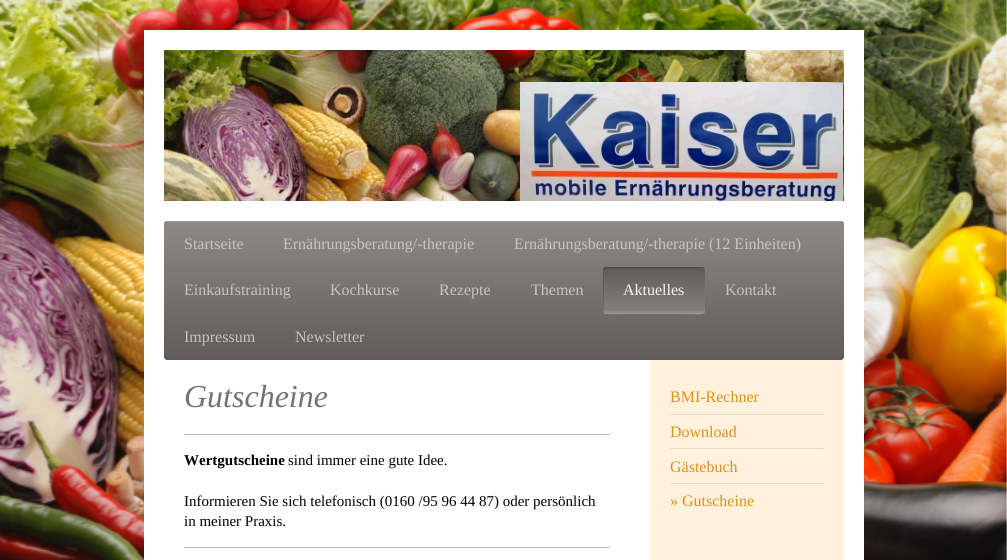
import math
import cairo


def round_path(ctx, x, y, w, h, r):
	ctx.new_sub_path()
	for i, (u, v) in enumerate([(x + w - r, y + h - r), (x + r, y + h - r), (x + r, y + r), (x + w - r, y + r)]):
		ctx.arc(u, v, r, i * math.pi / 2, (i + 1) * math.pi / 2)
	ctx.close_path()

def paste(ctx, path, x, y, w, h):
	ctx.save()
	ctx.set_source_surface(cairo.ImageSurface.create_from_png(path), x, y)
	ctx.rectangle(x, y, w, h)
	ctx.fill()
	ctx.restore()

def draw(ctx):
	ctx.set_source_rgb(1, 1, 1)
	ctx.paint()
	paste(ctx, 'media/1.png', 0, 0, 1007, 560)
	ctx.set_source_rgb(1, 1, 1)
	ctx.rectangle(144, 30, 720, 530)
	ctx.fill()
	paste(ctx, 'media/2.png', 164, 50, 680, 151)
	paste(ctx, 'media/3.png', 520, 82, 323, 119)
	gradient = cairo.LinearGradient(164, 221, 164, 360)
	gradient.add_color_stop_rgba(0, 0.561, 0.537, 0.522, 1)
	gradient.add_color_stop_rgba(1, 0.376, 0.357, 0.345, 1)
	ctx.set_source(gradient)
	round_path(ctx, 164, 221, 680, 139, 3)
	ctx.fill()
	ctx.set_source_rgb(0.459, 0.435, 0.424)
	ctx.new_path()
	ctx.move_to(167, 222)
	ctx.line_to(841, 222)
	ctx.curve_to(843, 222, 844, 223, 844, 225)
	ctx.line_to(844, 224)
	ctx.curve_to(844, 222, 843, 221, 841, 221)
	ctx.line_to(167, 221)
	ctx.curve_to(165, 221, 164, 222, 164, 224)
	ctx.line_to(164, 225)
	ctx.curve_to(164, 223, 165, 222, 167, 222)
	ctx.close_path()
	ctx.fill()
	ctx.set_source_rgba(1, 1, 1, 0.3)
	ctx.new_path()
	ctx.move_to(167, 222)
	ctx.line_to(841, 222)
	ctx.curve_to(843, 222, 844, 223, 844, 225)
	ctx.line_to(844, 224)
	ctx.curve_to(844, 222, 843, 221, 841, 221)
	ctx.line_to(167, 221)
	ctx.curve_to(165, 221, 164, 222, 164, 224)
	ctx.line_to(164, 225)
	ctx.curve_to(164, 223, 165, 222, 167, 222)
	ctx.close_path()
	ctx.fill()
	ctx.select_font_face('Liberation Serif')
	ctx.set_font_size(16)
	ctx.set_source_rgb(0.776, 0.765, 0.757)
	for x, y, s in [
		(184, 249, 'Startseite'),
		(283, 249, 'Ernährungsberatung/-therapie'),
		(514, 249, 'Ernährungsberatung/-therapie (12 Einheiten)'),
		(184, 295, 'Einkaufstraining'),
		(330, 295, 'Kochkurse'),
		(439, 295, 'Rezepte'),
		(531, 295, 'Themen'),
	]:
		ctx.move_to(x, y)
		ctx.show_text(s)
	gradient = cairo.LinearGradient(603, 314, 603, 267)
	gradient.add_color_stop_rgba(0, 0.533, 0.506, 0.49, 1)
	gradient.add_color_stop_rgba(1, 0.376, 0.357, 0.345, 1)
	ctx.set_source(gradient)
	round_path(ctx, 603, 267, 102, 47, 3)
	ctx.fill()
	ctx.set_source_rgba(0, 0, 0, 0.15)
	ctx.new_path()
	ctx.move_to(607, 268)
	ctx.line_to(704, 268)
	ctx.curve_to(704, 267, 703, 267, 702, 267)
	ctx.line_to(606, 267)
	ctx.curve_to(604, 267, 603, 268, 603, 270)
	ctx.line_to(603, 311)
	ctx.curve_to(603, 312, 603, 313, 604, 313)
	ctx.line_to(604, 278)
	ctx.curve_to(604, 275, 602, 268, 607, 268)
	ctx.close_path()
	ctx.fill()
	ctx.set_source_rgba(0, 0, 0, 0.04)
	ctx.new_path()
	ctx.move_to(606, 270)
	ctx.line_to(702, 270)
	ctx.curve_to(704, 270, 705, 271, 705, 273)
	ctx.line_to(705, 270)
	ctx.curve_to(705, 268, 704, 267, 702, 267)
	ctx.line_to(606, 267)
	ctx.curve_to(604, 267, 603, 268, 603, 270)
	ctx.line_to(603, 273)
	ctx.curve_to(603, 271, 604, 270, 606, 270)
	ctx.close_path()
	ctx.fill()
	ctx.set_source_rgba(1, 1, 1, 0.08)
	ctx.new_path()
	ctx.move_to(603, 308)
	ctx.line_to(603, 311)
	ctx.curve_to(603, 313, 604, 314, 606, 314)
	ctx.line_to(702, 314)
	ctx.curve_to(704, 314, 705, 313, 705, 311)
	ctx.line_to(705, 308)
	ctx.curve_to(705, 310, 704, 311, 702, 311)
	ctx.line_to(606, 311)
	ctx.curve_to(604, 311, 603, 310, 603, 308)
	ctx.close_path()
	ctx.fill()
	ctx.set_source_rgba(1, 1, 1, 0.1)
	ctx.new_path()
	ctx.move_to(603, 310)
	ctx.curve_to(603, 318, 619, 314, 622, 314)
	ctx.line_to(686, 314)
	ctx.curve_to(689, 314, 705, 318, 705, 310)
	ctx.curve_to(705, 312, 704, 313, 702, 313)
	ctx.line_to(606, 313)
	ctx.curve_to(604, 313, 603, 312, 603, 310)
	ctx.close_path()
	ctx.fill()
	ctx.set_source_rgb(0.949, 0.945, 0.945)
	ctx.move_to(623, 295)
	ctx.show_text('Aktuelles')
	ctx.set_source_rgb(0.776, 0.765, 0.757)
	for x, y, s in [
		(725, 295, 'Kontakt'),
		(184, 342, 'Impressum'),
		(295, 342, 'Newsletter'),
	]:
		ctx.move_to(x, y)
		ctx.show_text(s)
	ctx.select_font_face('Liberation Serif', cairo.FONT_SLANT_ITALIC)
	ctx.set_font_size(32)
	ctx.set_source_rgb(0.471, 0.447, 0.431)
	ctx.move_to(184, 407)
	ctx.show_text('Gutscheine')
	ctx.set_source_rgb(0.729, 0.729, 0.729)
	ctx.rectangle(184, 434, 426, 1)
	ctx.fill()
	ctx.select_font_face('Liberation Serif', cairo.FONT_SLANT_NORMAL, cairo.FONT_WEIGHT_BOLD)
	ctx.set_font_size(15)
	ctx.set_source_rgb(0, 0, 0)
	ctx.move_to(184, 465)
	ctx.show_text('Wertgutscheine')
	ctx.select_font_face('Liberation Serif')
	for x, y, s in [
		(288, 465, 'sind immer eine gute Idee.'),
		(184, 506, 'Informieren Sie sich telefonisch (0160 /95 96 44 87) oder persönlich'),
		(184, 526, 'in meiner Praxis.'),
	]:
		ctx.move_to(x, y)
		ctx.show_text(s)
	ctx.set_source_rgb(0.729, 0.729, 0.729)
	ctx.rectangle(184, 547, 426, 1)
	ctx.fill()
	ctx.set_source_rgb(1, 0.945, 0.859)
	ctx.rectangle(650, 360, 194, 200)
	ctx.fill()
	ctx.set_source_rgb(0.902, 0.851, 0.773)
	ctx.rectangle(670, 414, 154, 1)
	ctx.fill()
	ctx.set_font_size(16)
	ctx.set_source_rgb(0.875, 0.569, 0.086)
	ctx.move_to(670, 402)
	ctx.show_text('BMI-Rechner')
	ctx.set_source_rgb(0.902, 0.851, 0.773)
	ctx.rectangle(670, 448, 154, 1)
	ctx.fill()
	ctx.set_source_rgb(0.875, 0.569, 0.086)
	ctx.move_to(670, 437)
	ctx.show_text('Download')
	ctx.set_source_rgb(0.902, 0.851, 0.773)
	ctx.rectangle(670, 483, 154, 1)
	ctx.fill()
	ctx.set_source_rgb(0.875, 0.569, 0.086)
	ctx.move_to(670, 472)
	ctx.show_text('Gästebuch')
	ctx.move_to(670, 506)
	ctx.show_text('» Gutscheine')


surface = cairo.ImageSurface(cairo.FORMAT_RGB24, 1007, 560)
ctx = cairo.Context(surface)
options = cairo.FontOptions()
options.set_hint_metrics(cairo.HINT_METRICS_OFF)
options.set_hint_style(cairo.HINT_STYLE_NONE)
ctx.set_font_options(options)
ctx.set_miter_limit(4)
draw(ctx)
surface.write_to_png('image.png')
